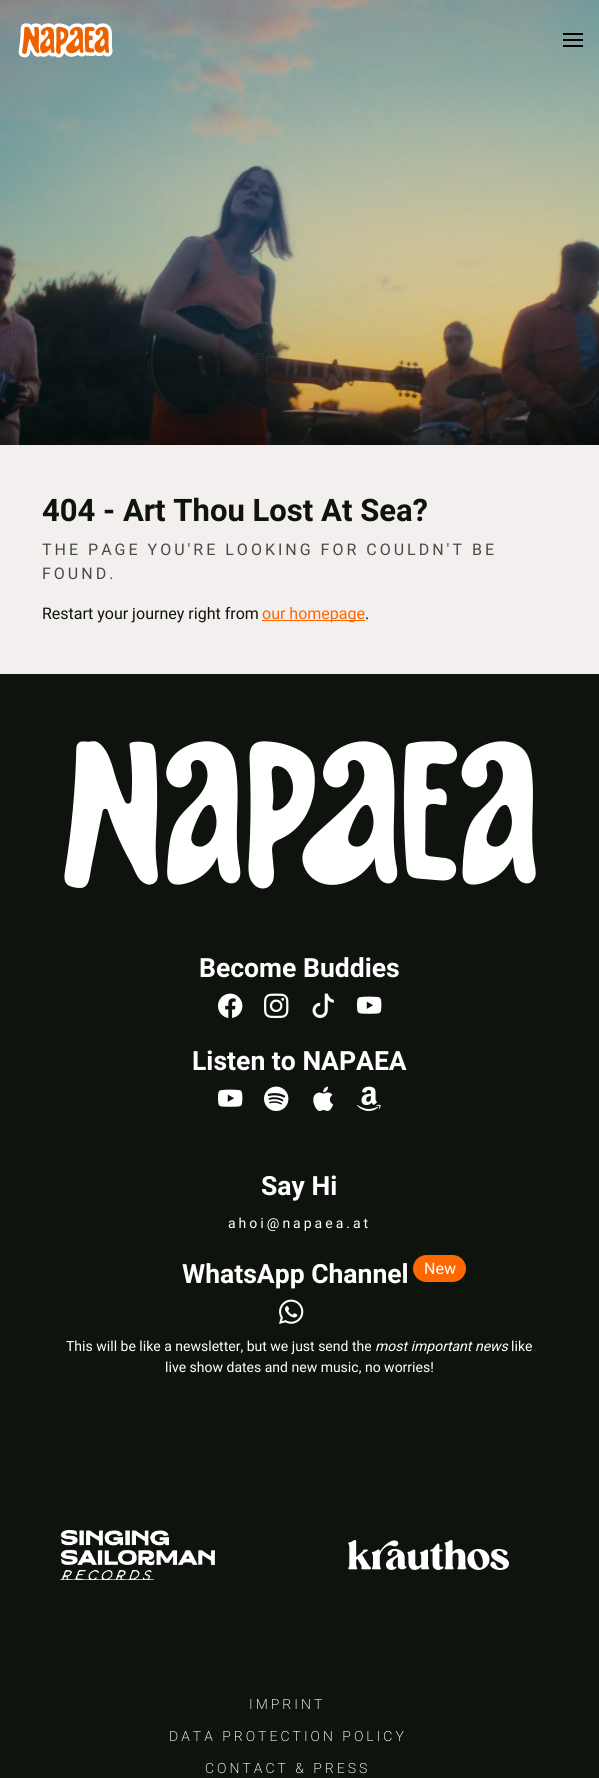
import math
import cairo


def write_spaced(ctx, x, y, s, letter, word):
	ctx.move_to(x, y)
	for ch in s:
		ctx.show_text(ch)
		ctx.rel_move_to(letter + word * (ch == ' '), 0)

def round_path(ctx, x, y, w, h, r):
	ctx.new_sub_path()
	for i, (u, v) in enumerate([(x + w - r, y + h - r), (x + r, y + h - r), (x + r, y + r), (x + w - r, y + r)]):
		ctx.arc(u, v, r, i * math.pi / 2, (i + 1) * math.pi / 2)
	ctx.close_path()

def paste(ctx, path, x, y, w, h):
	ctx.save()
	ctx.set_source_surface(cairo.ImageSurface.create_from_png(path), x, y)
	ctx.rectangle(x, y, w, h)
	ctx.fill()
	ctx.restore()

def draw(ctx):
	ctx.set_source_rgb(0.953, 0.937, 0.937)
	ctx.paint()
	paste(ctx, 'media/1.png', 0, 0, 599, 445)
	paste(ctx, 'media/2.png', 18, 23, 95, 35)
	ctx.set_source_rgb(0, 0, 0)
	ctx.rectangle(563, 33, 20, 2)
	ctx.rectangle(563, 39, 20, 2)
	ctx.rectangle(563, 45, 20, 2)
	ctx.fill()
	ctx.select_font_face('Heebo', cairo.FONT_SLANT_NORMAL, cairo.FONT_WEIGHT_BOLD)
	ctx.set_font_size(31)
	ctx.set_source_rgb(0.055, 0.078, 0.051)
	ctx.move_to(42, 521)
	ctx.show_text('404 - Art Thou Lost At Sea?')
	ctx.select_font_face('Heebo')
	ctx.set_font_size(16)
	ctx.set_source_rgb(0.278, 0.294, 0.275)
	write_spaced(ctx, 42, 555, 'THE PAGE YOU\'RE LOOKING FOR COULDN\'T BE', 3, 0)
	write_spaced(ctx, 42, 579, 'FOUND.', 3, 0)
	ctx.set_source_rgb(0.055, 0.078, 0.051)
	ctx.move_to(42, 619)
	ctx.show_text('Restart your journey right from')
	ctx.set_source_rgb(1, 0.404, 0)
	ctx.rectangle(262, 620, 103, 1)
	ctx.fill()
	ctx.move_to(262, 619)
	ctx.show_text('our homepage')
	ctx.set_source_rgb(0.055, 0.078, 0.051)
	ctx.move_to(365, 619)
	ctx.show_text('.')
	ctx.rectangle(0, 674, 599, 1104)
	ctx.fill()
	paste(ctx, 'media/3.png', 64, 741, 472, 148)
	ctx.select_font_face('Heebo', cairo.FONT_SLANT_NORMAL, cairo.FONT_WEIGHT_BOLD)
	ctx.set_font_size(26.5)
	ctx.set_source_rgb(1, 1, 1)
	ctx.move_to(199, 977)
	ctx.show_text('Become Buddies')
	paste(ctx, 'media/4.png', 218, 993, 25, 25)
	paste(ctx, 'media/5.png', 264, 993, 25, 25)
	paste(ctx, 'media/6.png', 312, 993, 22, 25)
	paste(ctx, 'media/7.png', 357, 996, 25, 18)
	ctx.move_to(192, 1070)
	ctx.show_text('Listen to NAPAEA')
	paste(ctx, 'media/7.png', 218, 1089, 25, 18)
	paste(ctx, 'media/8.png', 264, 1086, 25, 25)
	paste(ctx, 'media/9.png', 313, 1086, 21, 25)
	paste(ctx, 'media/10.png', 357, 1086, 24, 25)
	ctx.move_to(261, 1195)
	ctx.show_text('Say Hi')
	ctx.select_font_face('Heebo')
	ctx.set_font_size(14)
	write_spaced(ctx, 228, 1228, 'ahoi@napaea.at', 3, 0)
	ctx.select_font_face('Heebo', cairo.FONT_SLANT_NORMAL, cairo.FONT_WEIGHT_BOLD)
	ctx.set_font_size(26.5)
	ctx.move_to(182, 1283)
	ctx.show_text('WhatsApp Channel')
	ctx.set_source_rgb(1, 0.404, 0)
	round_path(ctx, 413, 1255, 53, 27, 13.5)
	ctx.fill()
	ctx.select_font_face('Heebo')
	ctx.set_font_size(16)
	ctx.set_source_rgb(1, 1, 1)
	ctx.move_to(424, 1274)
	ctx.show_text('New')
	paste(ctx, 'media/11.png', 279, 1299, 25, 25)
	ctx.set_font_size(14)
	ctx.move_to(66, 1351)
	ctx.show_text('This will be like a newsletter, but we just send the')
	ctx.select_font_face('Heebo', cairo.FONT_SLANT_ITALIC)
	ctx.move_to(375, 1351)
	ctx.show_text('most important news')
	ctx.select_font_face('Heebo')
	ctx.move_to(511, 1351)
	ctx.show_text('like')
	ctx.move_to(165, 1372)
	ctx.show_text('live show dates and new music, no worries!')
	paste(ctx, 'media/12.png', 60, 1530, 155, 50)
	paste(ctx, 'media/13.png', 348, 1540, 161, 30)
	ctx.select_font_face('Heebo ExtraLight')
	ctx.set_source_rgb(0.973, 0.976, 0.98)
	for x, y, s in [
		(249, 1709, 'IMPRINT'),
		(169, 1741, 'DATA PROTECTION POLICY'),
		(205, 1773, 'CONTACT & PRESS'),
	]:
		write_spaced(ctx, x, y, s, 3, 0)


surface = cairo.ImageSurface(cairo.FORMAT_RGB24, 599, 1778)
ctx = cairo.Context(surface)
options = cairo.FontOptions()
options.set_hint_metrics(cairo.HINT_METRICS_OFF)
options.set_hint_style(cairo.HINT_STYLE_NONE)
ctx.set_font_options(options)
ctx.set_miter_limit(4)
draw(ctx)
surface.write_to_png('image.png')
